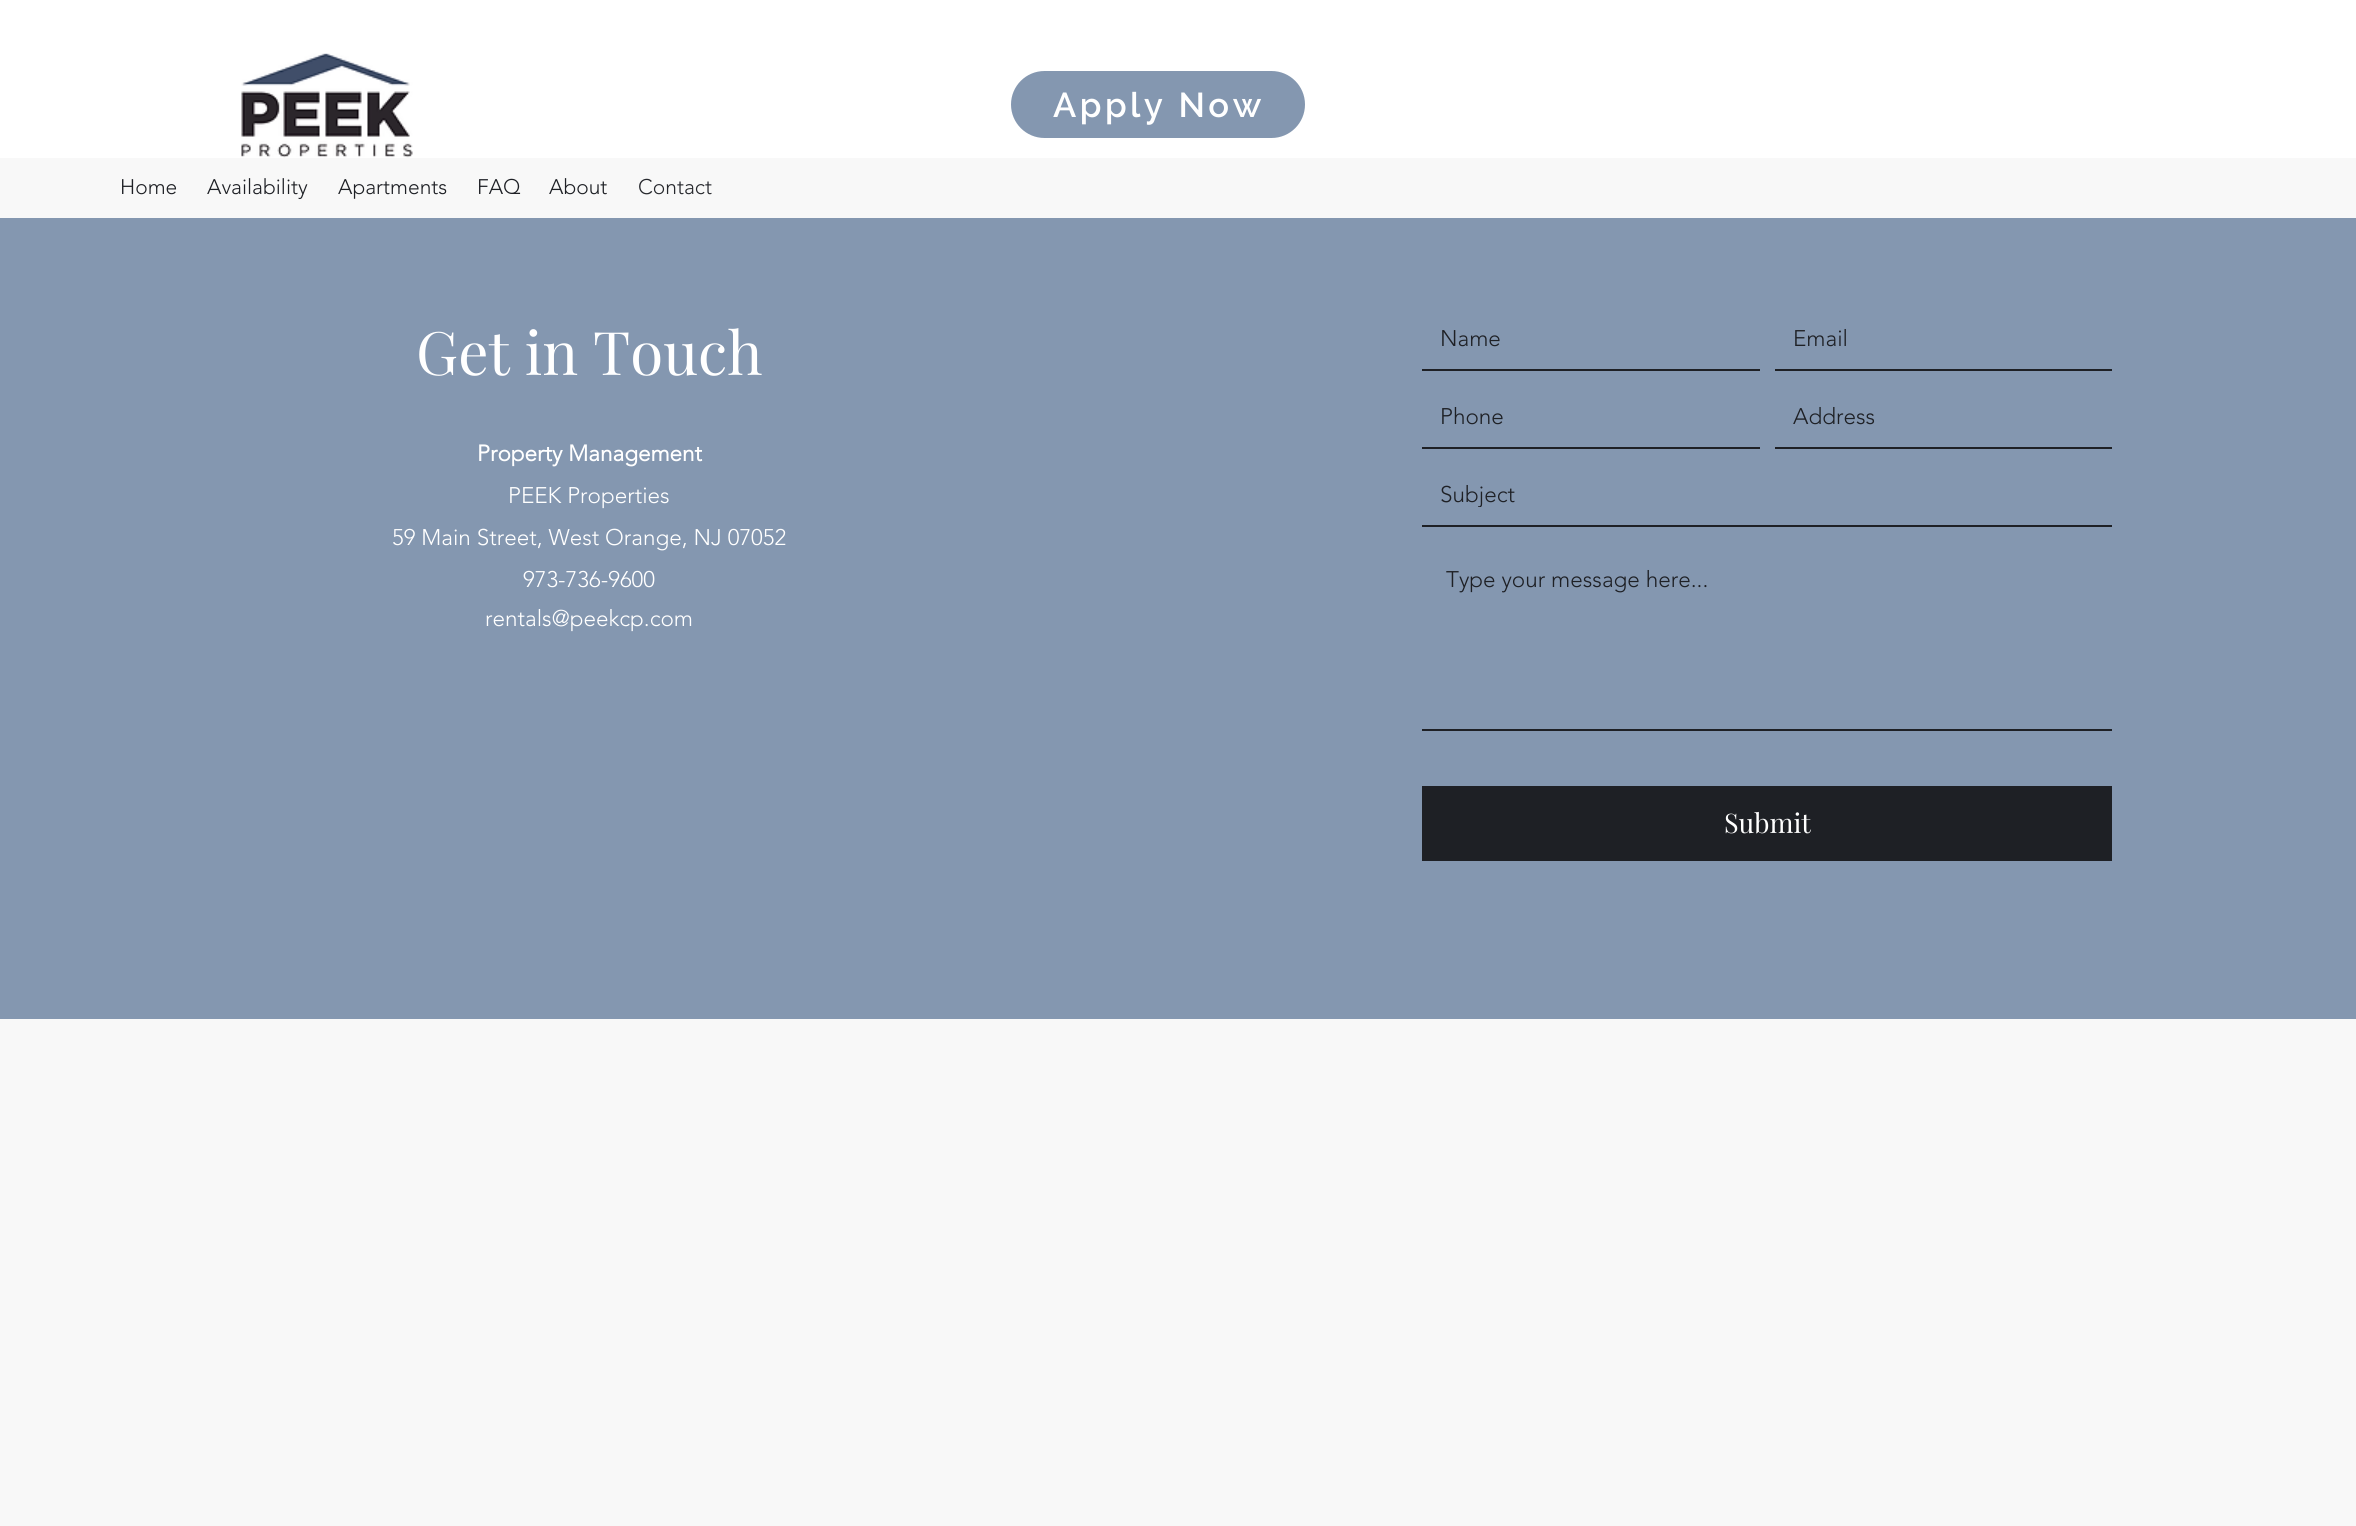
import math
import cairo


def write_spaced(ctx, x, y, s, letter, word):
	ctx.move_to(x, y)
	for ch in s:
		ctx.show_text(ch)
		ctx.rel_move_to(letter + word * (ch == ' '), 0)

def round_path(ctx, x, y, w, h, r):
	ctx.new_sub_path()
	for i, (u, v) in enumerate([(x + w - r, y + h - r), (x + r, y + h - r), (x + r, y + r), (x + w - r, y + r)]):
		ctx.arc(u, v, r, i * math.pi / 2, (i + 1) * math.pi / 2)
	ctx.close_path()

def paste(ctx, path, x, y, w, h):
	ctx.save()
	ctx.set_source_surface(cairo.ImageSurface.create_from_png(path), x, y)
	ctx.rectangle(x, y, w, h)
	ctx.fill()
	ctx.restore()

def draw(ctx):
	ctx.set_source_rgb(1, 1, 1)
	ctx.paint()
	paste(ctx, 'media/1.png', 241, 53, 172, 105)
	ctx.set_source_rgb(0.518, 0.592, 0.69)
	round_path(ctx, 1011, 71, 294, 67, 33.5)
	ctx.fill()
	ctx.select_font_face('Raleway SemiBold')
	ctx.set_font_size(34.5)
	ctx.set_source_rgb(1, 1, 1)
	write_spaced(ctx, 1053, 117, 'Apply Now', 3.5, 0)
	ctx.set_source_rgb(0.969, 0.969, 0.969)
	ctx.rectangle(0, 158, 2356, 60)
	ctx.fill()
	ctx.select_font_face('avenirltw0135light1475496 Light')
	ctx.set_font_size(21)
	ctx.set_source_rgb(0.118, 0.125, 0.145)
	for x, y, s in [
		(120, 194, 'Home'),
		(207, 194, 'Availability'),
		(338, 194, 'Apartments'),
		(477, 194, 'FAQ'),
		(549, 194, 'About'),
	]:
		ctx.move_to(x, y)
		ctx.show_text(s)
	ctx.set_source_rgb(0.149, 0.157, 0.176)
	ctx.move_to(638, 194)
	ctx.show_text('Contact')
	ctx.set_source_rgb(0.518, 0.592, 0.69)
	ctx.rectangle(0, 218, 2356, 801)
	ctx.fill()
	ctx.select_font_face('Playfair Display')
	ctx.set_font_size(60)
	ctx.set_source_rgb(1, 1, 1)
	ctx.move_to(416, 375)
	ctx.show_text('Get in Touch')
	ctx.select_font_face('avenirltw0135light1475496', cairo.FONT_SLANT_NORMAL, cairo.FONT_WEIGHT_BOLD)
	ctx.set_font_size(22.5)
	ctx.move_to(477, 461)
	ctx.show_text('Property Management')
	ctx.select_font_face('avenirltw0135light1475496 Light')
	for x, y, s in [
		(508, 503, 'PEEK Properties'),
		(392, 545, '59 Main Street, West Orange, NJ 07052'),
		(523, 587, '973-736-9600'),
		(485, 626, 'rentals@peekcp.com'),
	]:
		ctx.move_to(x, y)
		ctx.show_text(s)
	ctx.set_source_rgb(0.118, 0.125, 0.145)
	ctx.rectangle(1422, 369, 338, 2)
	ctx.fill()
	ctx.move_to(1440, 346)
	ctx.show_text('Name')
	ctx.rectangle(1775, 369, 337, 2)
	ctx.fill()
	ctx.move_to(1793, 346)
	ctx.show_text('Email')
	ctx.rectangle(1422, 447, 338, 2)
	ctx.fill()
	ctx.move_to(1440, 424)
	ctx.show_text('Phone')
	ctx.rectangle(1775, 447, 337, 2)
	ctx.fill()
	ctx.move_to(1793, 424)
	ctx.show_text('Address')
	ctx.rectangle(1422, 525, 690, 2)
	ctx.fill()
	ctx.save()
	ctx.rectangle(1440, 480, 668, 27)
	ctx.clip()
	ctx.move_to(1440, 502)
	ctx.show_text('Subject')
	ctx.restore()
	ctx.rectangle(1422, 729, 690, 2)
	ctx.fill()
	ctx.move_to(1446, 587)
	ctx.show_text('Type your message here...')
	ctx.rectangle(1422, 786, 690, 75)
	ctx.fill()
	ctx.select_font_face('Playfair Display')
	ctx.set_font_size(27)
	ctx.set_source_rgb(1, 1, 1)
	ctx.move_to(1724, 833)
	ctx.show_text('Submit')
	ctx.set_source_rgb(0.969, 0.969, 0.969)
	ctx.rectangle(0, 1019, 2356, 507)
	ctx.fill()


surface = cairo.ImageSurface(cairo.FORMAT_RGB24, 2356, 1526)
ctx = cairo.Context(surface)
options = cairo.FontOptions()
options.set_hint_metrics(cairo.HINT_METRICS_OFF)
options.set_hint_style(cairo.HINT_STYLE_NONE)
ctx.set_font_options(options)
ctx.set_miter_limit(4)
draw(ctx)
surface.write_to_png('image.png')
